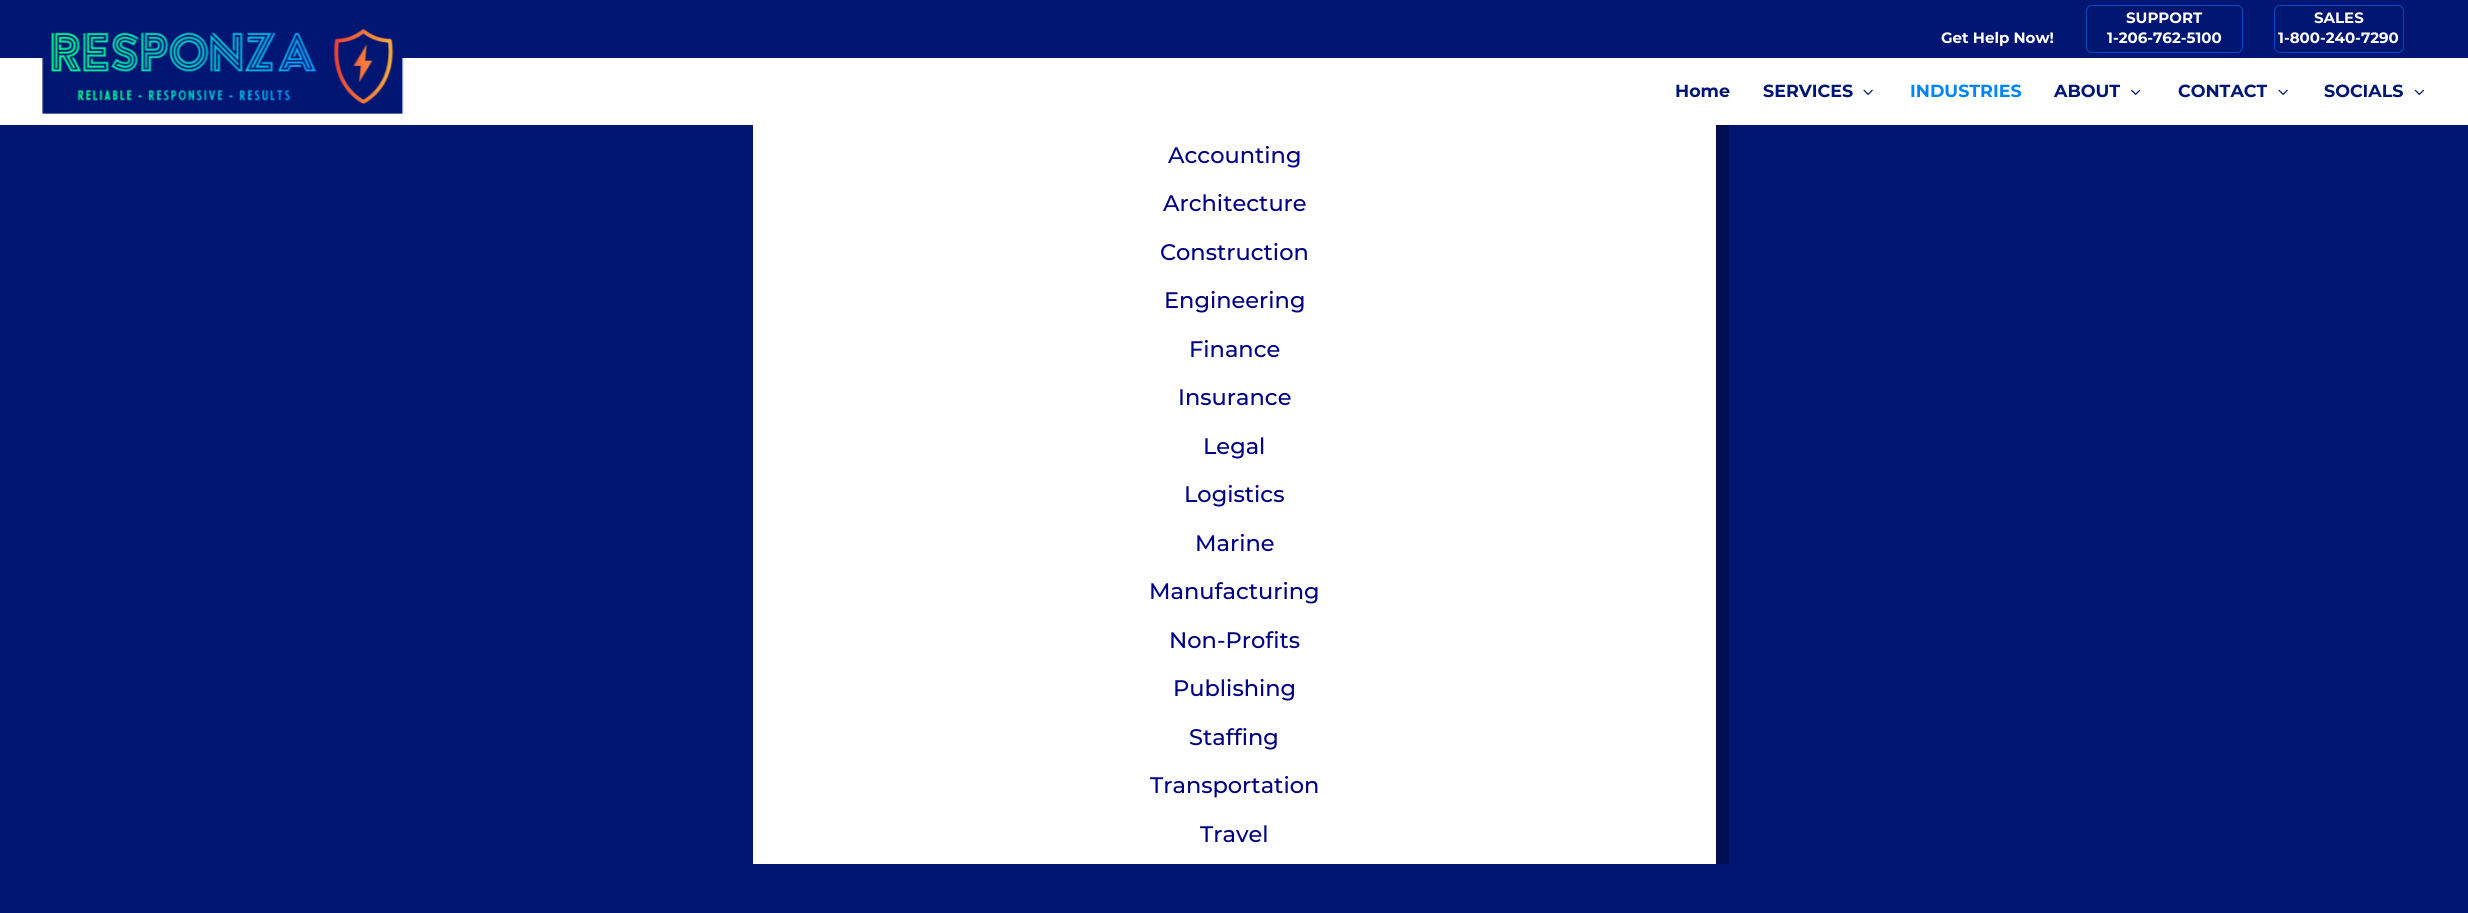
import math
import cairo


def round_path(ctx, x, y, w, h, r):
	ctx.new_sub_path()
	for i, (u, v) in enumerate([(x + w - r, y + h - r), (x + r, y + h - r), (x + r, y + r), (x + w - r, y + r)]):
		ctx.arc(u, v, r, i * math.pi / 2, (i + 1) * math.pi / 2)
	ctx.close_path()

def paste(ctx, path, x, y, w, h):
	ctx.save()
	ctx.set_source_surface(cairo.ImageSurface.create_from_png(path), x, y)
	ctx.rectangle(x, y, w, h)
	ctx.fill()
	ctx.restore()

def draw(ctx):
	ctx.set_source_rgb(0.004, 0.086, 0.451)
	ctx.paint()
	ctx.set_source_rgba(0, 0, 0, 0.3)
	ctx.new_path()
	ctx.move_to(765, 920)
	ctx.line_to(765, 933)
	ctx.line_to(1729, 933)
	ctx.line_to(1729, -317)
	ctx.line_to(1716, -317)
	ctx.line_to(1716, 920)
	ctx.close_path()
	ctx.fill()
	ctx.set_source_rgb(0.004, 0.086, 0.451)
	ctx.rectangle(1716, 0, 13, 58)
	ctx.fill()
	ctx.select_font_face('Montserrat', cairo.FONT_SLANT_NORMAL, cairo.FONT_WEIGHT_BOLD)
	ctx.set_font_size(15)
	ctx.set_source_rgb(1, 1, 1)
	ctx.move_to(1941, 43)
	ctx.show_text('Get Help Now!')
	round_path(ctx, 2086.5, 5.5, 156, 47, 5.5)
	ctx.set_source_rgb(0, 0.278, 0.733)
	ctx.set_line_width(1)
	ctx.stroke()
	ctx.set_source_rgb(1, 1, 1)
	ctx.move_to(2126, 23)
	ctx.show_text('SUPPORT')
	ctx.move_to(2107, 43)
	ctx.show_text('1-206-762-5100')
	round_path(ctx, 2274.5, 5.5, 129, 47, 5.5)
	ctx.set_source_rgb(0, 0.278, 0.733)
	ctx.stroke()
	ctx.set_source_rgb(1, 1, 1)
	ctx.move_to(2314, 23)
	ctx.show_text('SALES')
	ctx.move_to(2278, 43)
	ctx.show_text('1-800-240-7290')
	ctx.rectangle(0, 58, 2468, 67)
	ctx.fill()
	paste(ctx, 'media/1.png', 42, 28, 362, 86)
	ctx.set_font_size(17.5)
	ctx.set_source_rgb(0.004, 0.086, 0.451)
	ctx.move_to(1675, 97)
	ctx.show_text('Home')
	ctx.move_to(1763, 97)
	ctx.show_text('SERVICES')
	paste(ctx, 'media/2.png', 1863, 89, 10, 6)
	ctx.set_source_rgb(0, 0.522, 0.976)
	ctx.move_to(1910, 97)
	ctx.show_text('INDUSTRIES')
	ctx.set_source_rgb(0.004, 0.086, 0.451)
	ctx.move_to(2054, 97)
	ctx.show_text('ABOUT')
	paste(ctx, 'media/3.png', 2131, 89, 10, 6)
	ctx.move_to(2178, 97)
	ctx.show_text('CONTACT')
	paste(ctx, 'media/2.png', 2278, 89, 10, 6)
	ctx.move_to(2324, 97)
	ctx.show_text('SOCIALS')
	paste(ctx, 'media/4.png', 2414, 89, 10, 6)
	ctx.set_source_rgb(1, 1, 1)
	ctx.rectangle(753, 125, 963, 739)
	ctx.fill()
	ctx.select_font_face('Montserrat Medium')
	ctx.set_font_size(22.5)
	ctx.set_source_rgb(0, 0, 0.502)
	for x, y, s in [
		(1168, 163, 'Accounting'),
		(1163, 211, 'Architecture'),
		(1160, 260, 'Construction'),
		(1164, 308, 'Engineering'),
		(1189, 357, 'Finance'),
		(1178, 405, 'Insurance'),
		(1203, 454, 'Legal'),
		(1184, 502, 'Logistics'),
		(1195, 551, 'Marine'),
		(1149, 599, 'Manufacturing'),
		(1169, 648, 'Non-Profits'),
		(1173, 696, 'Publishing'),
		(1189, 745, 'Staffing'),
		(1150, 793, 'Transportation'),
		(1200, 842, 'Travel'),
	]:
		ctx.move_to(x, y)
		ctx.show_text(s)
	ctx.set_source_rgb(0.004, 0.086, 0.451)
	ctx.rectangle(1716, 864, 13, 49)
	ctx.fill()


surface = cairo.ImageSurface(cairo.FORMAT_RGB24, 2468, 913)
ctx = cairo.Context(surface)
options = cairo.FontOptions()
options.set_hint_metrics(cairo.HINT_METRICS_OFF)
options.set_hint_style(cairo.HINT_STYLE_NONE)
ctx.set_font_options(options)
ctx.set_miter_limit(4)
draw(ctx)
surface.write_to_png('image.png')
